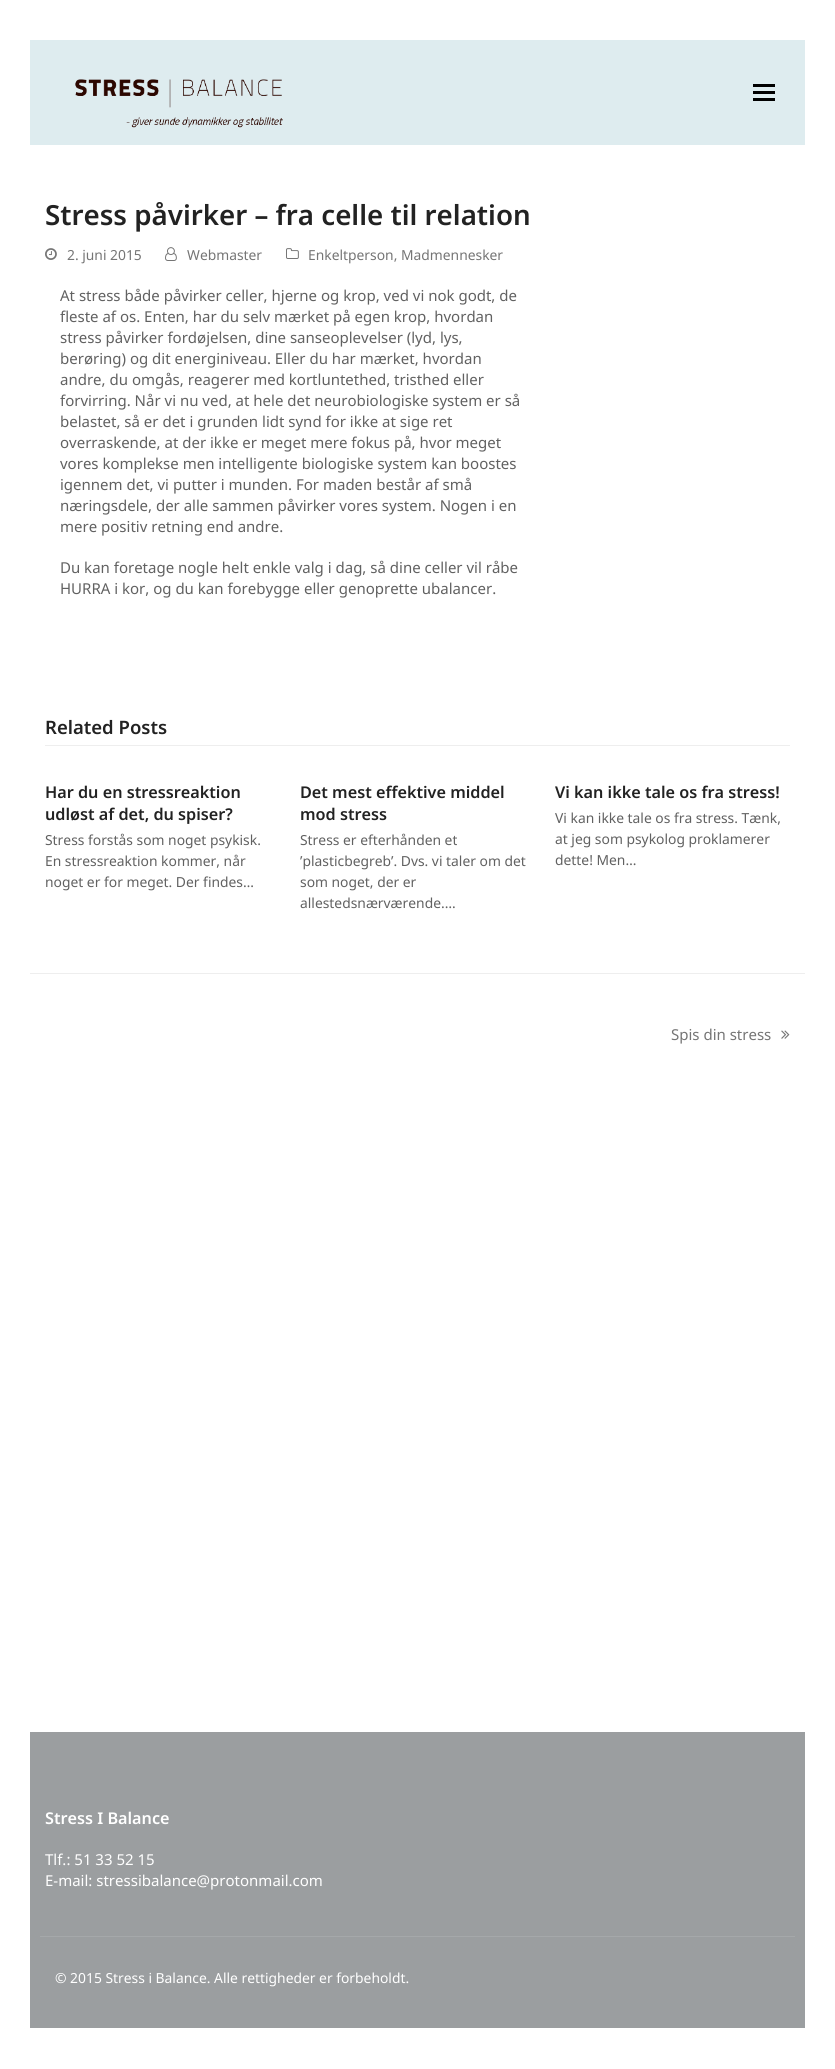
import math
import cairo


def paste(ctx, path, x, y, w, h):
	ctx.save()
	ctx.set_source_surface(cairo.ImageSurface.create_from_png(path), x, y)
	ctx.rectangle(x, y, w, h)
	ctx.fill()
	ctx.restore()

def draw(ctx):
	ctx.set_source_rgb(1, 1, 1)
	ctx.paint()
	ctx.set_source_rgb(0.871, 0.925, 0.937)
	ctx.rectangle(30, 40, 775, 105)
	ctx.fill()
	paste(ctx, 'media/1.png', 75, 79, 208, 49)
	ctx.set_source_rgb(0, 0, 0)
	ctx.rectangle(753, 91, 22, 3)
	ctx.rectangle(753, 84, 22, 3)
	ctx.rectangle(753, 98, 22, 3)
	ctx.fill()
	ctx.select_font_face('Noto Sans SemiBold')
	ctx.set_font_size(27.7)
	ctx.set_source_rgb(0.133, 0.133, 0.133)
	ctx.move_to(45, 225)
	ctx.show_text('Stress påvirker – fra celle til relation')
	paste(ctx, 'media/2.png', 45, 248, 12, 12)
	ctx.select_font_face('Noto Sans')
	ctx.set_font_size(13.85)
	ctx.set_source_rgb(0.459, 0.459, 0.459)
	ctx.move_to(67, 260)
	ctx.show_text('2. juni 2015')
	paste(ctx, 'media/3.png', 165, 247, 12, 14)
	ctx.move_to(187, 260)
	ctx.show_text('Webmaster')
	paste(ctx, 'media/4.png', 286, 248, 13, 11)
	ctx.move_to(308, 260)
	ctx.show_text('Enkeltperson, Madmennesker')
	ctx.set_font_size(15)
	ctx.set_source_rgb(0.38, 0.38, 0.38)
	for x, y, s in [
		(60, 301, 'At stress både påvirker celler, hjerne og krop, ved vi nok godt, de'),
		(60, 322, 'fleste af os. Enten, har du selv mærket på egen krop, hvordan'),
		(60, 343, 'stress påvirker fordøjelsen, dine sanseoplevelser (lyd, lys,'),
		(60, 364, 'berøring) og dit energiniveau. Eller du har mærket, hvordan'),
		(60, 385, 'andre, du omgås, reagerer med kortluntethed, tristhed eller'),
		(60, 406, 'forvirring. Når vi nu ved, at hele det neurobiologiske system er så'),
		(60, 427, 'belastet, så er det i grunden lidt synd for ikke at sige ret'),
		(60, 448, 'overraskende, at der ikke er meget mere fokus på, hvor meget'),
		(60, 469, 'vores komplekse men intelligente biologiske system kan boostes'),
		(60, 490, 'igennem det, vi putter i munden. For maden består af små'),
		(60, 511, 'næringsdele, der alle sammen påvirker vores system. Nogen i en'),
		(60, 532, 'mere positiv retning end andre.'),
		(60, 573, 'Du kan foretage nogle helt enkle valg i dag, så dine celler vil råbe'),
		(60, 594, 'HURRA i kor, og du kan forebygge eller genoprette ubalancer.'),
	]:
		ctx.move_to(x, y)
		ctx.show_text(s)
	ctx.set_source_rgb(0.933, 0.933, 0.933)
	ctx.rectangle(45, 745, 745, 1)
	ctx.fill()
	ctx.select_font_face('Noto Sans SemiBold')
	ctx.set_font_size(18.5)
	ctx.set_source_rgb(0.133, 0.133, 0.133)
	ctx.move_to(45, 734)
	ctx.show_text('Related Posts')
	ctx.set_font_size(16.2)
	ctx.move_to(45, 798)
	ctx.show_text('Har du en stressreaktion')
	ctx.move_to(45, 820)
	ctx.show_text('udløst af det, du spiser?')
	ctx.select_font_face('Noto Sans')
	ctx.set_font_size(13.85)
	ctx.set_source_rgb(0.38, 0.38, 0.38)
	for x, y, s in [
		(45, 845, 'Stress forstås som noget psykisk.'),
		(45, 866, 'En stressreaktion kommer, når'),
		(45, 887, 'noget er for meget. Der findes…'),
	]:
		ctx.move_to(x, y)
		ctx.show_text(s)
	ctx.select_font_face('Noto Sans SemiBold')
	ctx.set_font_size(16.2)
	ctx.set_source_rgb(0.133, 0.133, 0.133)
	ctx.move_to(300, 798)
	ctx.show_text('Det mest effektive middel')
	ctx.move_to(300, 820)
	ctx.show_text('mod stress')
	ctx.select_font_face('Noto Sans')
	ctx.set_font_size(13.85)
	ctx.set_source_rgb(0.38, 0.38, 0.38)
	for x, y, s in [
		(300, 845, 'Stress er efterhånden et'),
		(300, 866, '’plasticbegreb’. Dvs. vi taler om det'),
		(300, 887, 'som noget, der er'),
		(300, 908, 'allestedsnærværende.…'),
	]:
		ctx.move_to(x, y)
		ctx.show_text(s)
	ctx.select_font_face('Noto Sans SemiBold')
	ctx.set_font_size(16.2)
	ctx.set_source_rgb(0.133, 0.133, 0.133)
	ctx.move_to(555, 798)
	ctx.show_text('Vi kan ikke tale os fra stress!')
	ctx.select_font_face('Noto Sans')
	ctx.set_font_size(13.85)
	ctx.set_source_rgb(0.38, 0.38, 0.38)
	for x, y, s in [
		(555, 823, 'Vi kan ikke tale os fra stress. Tænk,'),
		(555, 844, 'at jeg som psykolog proklamerer'),
		(555, 865, 'dette! Men…'),
	]:
		ctx.move_to(x, y)
		ctx.show_text(s)
	ctx.set_source_rgb(0.933, 0.933, 0.933)
	ctx.rectangle(30, 973, 775, 1)
	ctx.fill()
	ctx.set_font_size(15)
	ctx.set_source_rgb(0.459, 0.459, 0.459)
	ctx.move_to(671, 1040)
	ctx.show_text('Spis din stress')
	paste(ctx, 'media/5.png', 781, 1030, 9, 9)
	ctx.set_source_rgb(0.608, 0.62, 0.627)
	ctx.rectangle(30, 1732, 775, 296)
	ctx.fill()
	ctx.select_font_face('Noto Sans SemiBold')
	ctx.set_font_size(16.2)
	ctx.set_source_rgb(1, 1, 1)
	ctx.move_to(45, 1824)
	ctx.show_text('Stress I Balance')
	ctx.select_font_face('Noto Sans')
	ctx.set_font_size(15)
	ctx.move_to(45, 1865)
	ctx.show_text('Tlf.: 51 33 52 15')
	ctx.move_to(45, 1886)
	ctx.show_text('E-mail: stressibalance@protonmail.com')
	ctx.set_source_rgb(0.647, 0.659, 0.667)
	ctx.rectangle(40, 1936, 755, 1)
	ctx.fill()
	ctx.set_font_size(13.85)
	ctx.set_source_rgb(1, 1, 1)
	ctx.move_to(55, 1983)
	ctx.show_text('© 2015 Stress i Balance. Alle rettigheder er forbeholdt.')


surface = cairo.ImageSurface(cairo.FORMAT_RGB24, 835, 2069)
ctx = cairo.Context(surface)
options = cairo.FontOptions()
options.set_hint_metrics(cairo.HINT_METRICS_OFF)
options.set_hint_style(cairo.HINT_STYLE_NONE)
ctx.set_font_options(options)
ctx.set_miter_limit(4)
draw(ctx)
surface.write_to_png('image.png')
